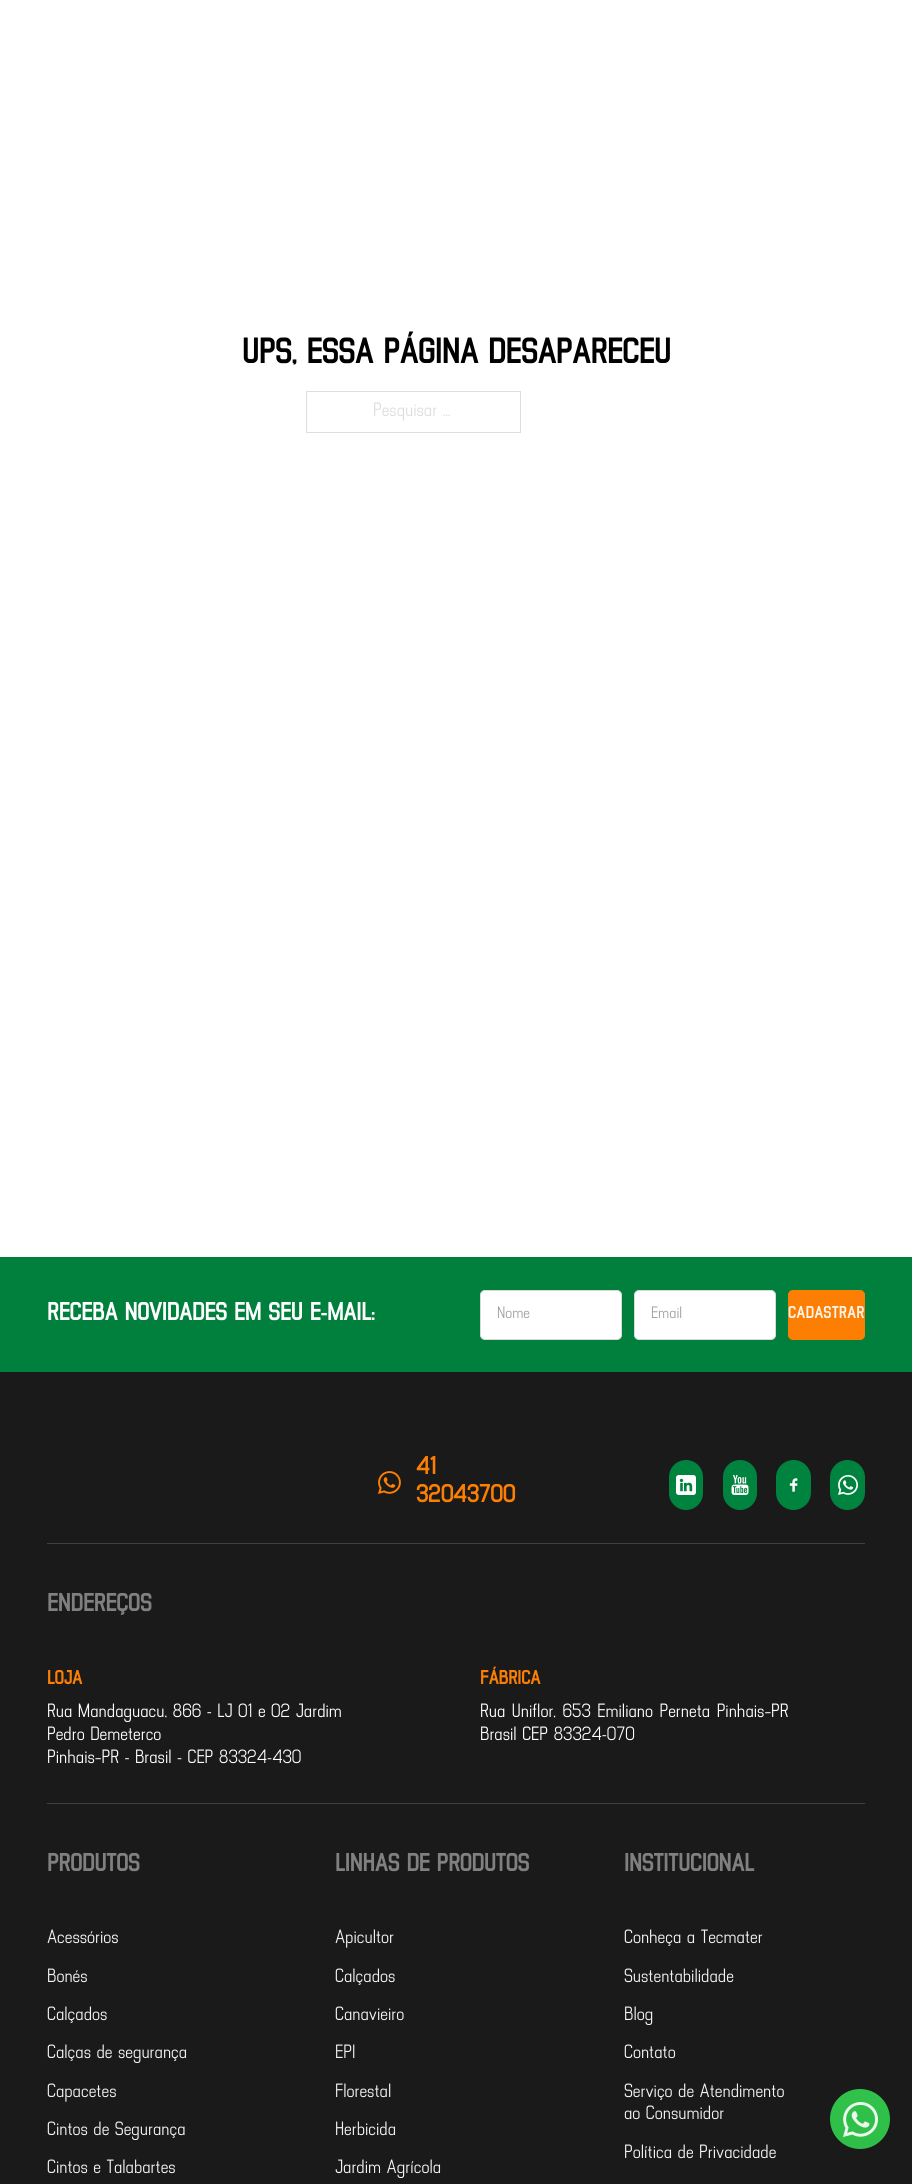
import math
import cairo


def write_spaced(ctx, x, y, s, letter, word):
	ctx.move_to(x, y)
	for ch in s:
		ctx.show_text(ch)
		ctx.rel_move_to(letter + word * (ch == ' '), 0)

def round_path(ctx, x, y, w, h, r):
	ctx.new_sub_path()
	for i, (u, v) in enumerate([(x + w - r, y + h - r), (x + r, y + h - r), (x + r, y + r), (x + w - r, y + r)]):
		ctx.arc(u, v, r, i * math.pi / 2, (i + 1) * math.pi / 2)
	ctx.close_path()

def paste(ctx, path, x, y, w, h):
	ctx.save()
	ctx.set_source_surface(cairo.ImageSurface.create_from_png(path), x, y)
	ctx.rectangle(x, y, w, h)
	ctx.fill()
	ctx.restore()

def draw(ctx):
	ctx.set_source_rgb(1, 1, 1)
	ctx.paint()
	ctx.select_font_face('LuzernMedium', cairo.FONT_SLANT_NORMAL, cairo.FONT_WEIGHT_BOLD)
	ctx.set_font_size(35)
	ctx.set_source_rgb(0, 0, 0)
	ctx.move_to(242, 363)
	ctx.show_text('UPS, ESSA PÁGINA DESAPARECEU')
	ctx.rectangle(306.5, 391.5, 214, 41)
	ctx.set_source_rgb(0.867, 0.871, 0.875)
	ctx.set_line_width(1)
	ctx.stroke()
	ctx.select_font_face('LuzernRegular')
	ctx.set_font_size(19.25)
	ctx.move_to(373, 416)
	ctx.show_text('Pesquisar ...')
	ctx.set_source_rgb(0, 0.502, 0.235)
	ctx.rectangle(0, 1257, 912, 115)
	ctx.fill()
	ctx.select_font_face('LuzernMedium', cairo.FONT_SLANT_NORMAL, cairo.FONT_WEIGHT_BOLD)
	ctx.set_font_size(24.75)
	ctx.set_source_rgb(1, 1, 1)
	ctx.move_to(47, 1320)
	ctx.show_text('RECEBA NOVIDADES EM SEU E-MAIL:')
	round_path(ctx, 480.5, 1290.5, 141, 49, 4.5)
	ctx.fill_preserve()
	ctx.set_source_rgb(0.851, 0.851, 0.851)
	ctx.stroke()
	ctx.select_font_face('LuzernRegular')
	ctx.set_font_size(16.5)
	ctx.set_source_rgb(0.627, 0.627, 0.627)
	ctx.move_to(497, 1318)
	ctx.show_text('Nome')
	ctx.set_source_rgb(1, 1, 1)
	round_path(ctx, 634.5, 1290.5, 141, 49, 4.5)
	ctx.fill_preserve()
	ctx.set_source_rgb(0.851, 0.851, 0.851)
	ctx.stroke()
	ctx.set_source_rgb(0.627, 0.627, 0.627)
	ctx.move_to(651, 1318)
	ctx.show_text('Email')
	ctx.set_source_rgb(0.988, 0.498, 0.012)
	round_path(ctx, 788.5, 1290.5, 76, 49, 4.5)
	ctx.fill_preserve()
	ctx.stroke()
	ctx.select_font_face('LuzernMedium', cairo.FONT_SLANT_NORMAL, cairo.FONT_WEIGHT_BOLD)
	ctx.set_source_rgb(1, 0.949, 0.902)
	write_spaced(ctx, 788, 1318, 'CADASTRAR', 0.5, 0)
	ctx.set_source_rgb(0.102, 0.102, 0.102)
	ctx.rectangle(0, 1372, 912, 812)
	ctx.fill()
	ctx.set_source_rgb(0.251, 0.251, 0.251)
	ctx.rectangle(47, 1543, 818, 1)
	ctx.fill()
	paste(ctx, 'media/1.png', 378, 1471, 23, 23)
	ctx.set_font_size(24.75)
	ctx.set_source_rgb(0.988, 0.498, 0.012)
	ctx.move_to(416, 1474)
	ctx.show_text('41')
	ctx.move_to(416, 1502)
	ctx.show_text('32043700')
	ctx.set_source_rgb(0, 0.514, 0.243)
	round_path(ctx, 669, 1460, 34, 50, 17)
	ctx.fill()
	paste(ctx, 'media/2.png', 676, 1475, 20, 20)
	round_path(ctx, 723, 1460, 34, 50, 17)
	ctx.fill()
	paste(ctx, 'media/3.png', 731, 1475, 18, 20)
	round_path(ctx, 776, 1460, 35, 50, 17.5)
	ctx.fill()
	paste(ctx, 'media/4.png', 789, 1478, 9, 14)
	round_path(ctx, 830, 1460, 35, 50, 17.5)
	ctx.fill()
	paste(ctx, 'media/5.png', 838, 1475, 20, 20)
	ctx.set_source_rgb(0.251, 0.251, 0.251)
	ctx.rectangle(47, 1803, 818, 1)
	ctx.fill()
	ctx.set_source_rgb(0.502, 0.502, 0.502)
	ctx.move_to(47, 1611)
	ctx.show_text('ENDEREÇOS')
	ctx.set_font_size(19.25)
	ctx.set_source_rgb(0.988, 0.498, 0.012)
	ctx.move_to(47, 1684)
	ctx.show_text('LOJA')
	ctx.select_font_face('LuzernRegular')
	ctx.set_source_rgb(1, 1, 1)
	for x, y, s in [
		(47, 1717, 'Rua Mandaguacu, 866 - LJ 01 e 02 Jardim'),
		(47, 1740, 'Pedro Demeterco'),
		(47, 1763, 'Pinhais–PR - Brasil - CEP 83324-430'),
	]:
		ctx.move_to(x, y)
		ctx.show_text(s)
	ctx.select_font_face('LuzernMedium', cairo.FONT_SLANT_NORMAL, cairo.FONT_WEIGHT_BOLD)
	ctx.set_source_rgb(0.988, 0.498, 0.012)
	ctx.move_to(480, 1684)
	ctx.show_text('FÁBRICA')
	ctx.select_font_face('LuzernRegular')
	ctx.set_source_rgb(1, 1, 1)
	write_spaced(ctx, 480, 1717, 'Rua Uniflor, 653 Emiliano Perneta Pinhais–PR', 0, 1)
	ctx.move_to(480, 1740)
	ctx.show_text('Brasil CEP 83324-070')
	ctx.select_font_face('LuzernMedium', cairo.FONT_SLANT_NORMAL, cairo.FONT_WEIGHT_BOLD)
	ctx.set_font_size(24.75)
	ctx.set_source_rgb(0.502, 0.502, 0.502)
	ctx.move_to(47, 1871)
	ctx.show_text('PRODUTOS')
	ctx.select_font_face('LuzernRegular')
	ctx.set_font_size(19.25)
	ctx.set_source_rgb(0.949, 0.949, 0.949)
	for x, y, s in [
		(47, 1943, 'Acessórios'),
		(47, 1982, 'Bonés'),
		(47, 2020, 'Calçados'),
		(47, 2058, 'Calças de segurança'),
		(47, 2097, 'Capacetes'),
		(47, 2135, 'Cintos de Segurança'),
		(47, 2173, 'Cintos e Talabartes'),
	]:
		ctx.move_to(x, y)
		ctx.show_text(s)
	ctx.select_font_face('LuzernMedium', cairo.FONT_SLANT_NORMAL, cairo.FONT_WEIGHT_BOLD)
	ctx.set_font_size(24.75)
	ctx.set_source_rgb(0.502, 0.502, 0.502)
	ctx.move_to(335, 1871)
	ctx.show_text('LINHAS DE PRODUTOS')
	ctx.select_font_face('LuzernRegular')
	ctx.set_font_size(19.25)
	ctx.set_source_rgb(0.949, 0.949, 0.949)
	for x, y, s in [
		(335, 1943, 'Apicultor'),
		(335, 1982, 'Calçados'),
		(335, 2020, 'Canavieiro'),
		(335, 2058, 'EPI'),
		(335, 2097, 'Florestal'),
		(335, 2135, 'Herbicida'),
		(335, 2173, 'Jardim Agrícola'),
	]:
		ctx.move_to(x, y)
		ctx.show_text(s)
	ctx.select_font_face('LuzernMedium', cairo.FONT_SLANT_NORMAL, cairo.FONT_WEIGHT_BOLD)
	ctx.set_font_size(24.75)
	ctx.set_source_rgb(0.502, 0.502, 0.502)
	ctx.move_to(624, 1871)
	ctx.show_text('INSTITUCIONAL')
	ctx.select_font_face('LuzernRegular')
	ctx.set_font_size(19.25)
	ctx.set_source_rgb(0.949, 0.949, 0.949)
	for x, y, s in [
		(624, 1943, 'Conheça a Tecmater'),
		(624, 1982, 'Sustentabilidade'),
		(624, 2020, 'Blog'),
		(624, 2058, 'Contato'),
		(624, 2097, 'Serviço de Atendimento'),
		(624, 2119, 'ao Consumidor'),
		(624, 2158, 'Política de Privacidade'),
	]:
		ctx.move_to(x, y)
		ctx.show_text(s)
	gradient = cairo.LinearGradient(860, 2089, 860, 2149)
	gradient.add_color_stop_rgba(0, 0.188, 0.761, 0.294, 1)
	gradient.add_color_stop_rgba(1, 0.184, 0.745, 0.286, 1)
	ctx.set_source(gradient)
	ctx.new_path()
	ctx.arc(860, 2119, 30, 0, 2 * math.pi)
	ctx.fill()
	paste(ctx, 'media/6.png', 843, 2102, 35, 35)


surface = cairo.ImageSurface(cairo.FORMAT_RGB24, 912, 2184)
ctx = cairo.Context(surface)
options = cairo.FontOptions()
options.set_hint_metrics(cairo.HINT_METRICS_OFF)
options.set_hint_style(cairo.HINT_STYLE_NONE)
ctx.set_font_options(options)
ctx.set_miter_limit(4)
draw(ctx)
surface.write_to_png('image.png')
